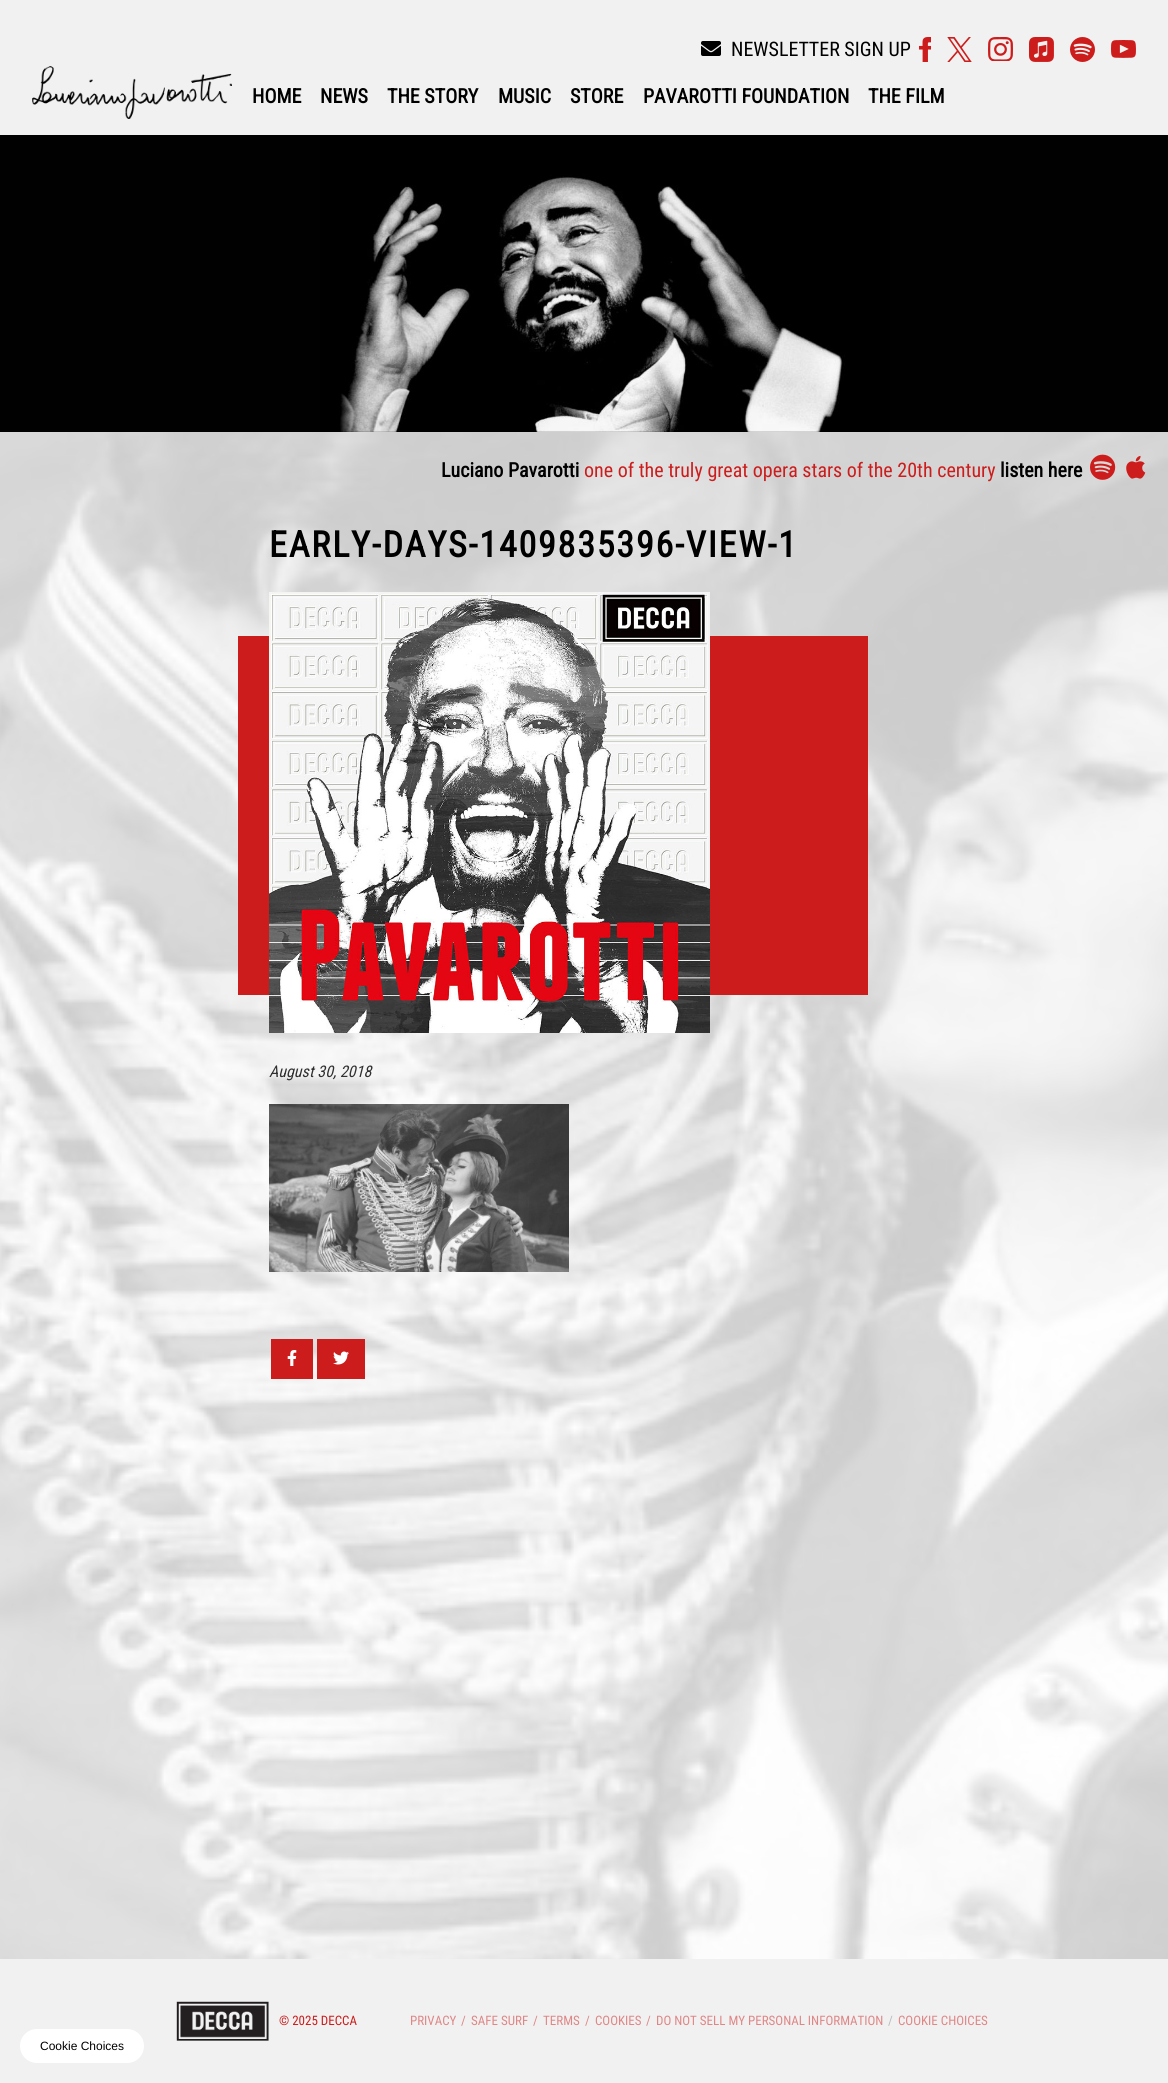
import math
import cairo


def write_spaced(ctx, x, y, s, letter, word):
	ctx.move_to(x, y)
	for ch in s:
		ctx.show_text(ch)
		ctx.rel_move_to(letter + word * (ch == ' '), 0)

def round_path(ctx, x, y, w, h, r):
	ctx.new_sub_path()
	for i, (u, v) in enumerate([(x + w - r, y + h - r), (x + r, y + h - r), (x + r, y + r), (x + w - r, y + r)]):
		ctx.arc(u, v, r, i * math.pi / 2, (i + 1) * math.pi / 2)
	ctx.close_path()

def paste(ctx, path, x, y, w, h):
	ctx.save()
	ctx.set_source_surface(cairo.ImageSurface.create_from_png(path), x, y)
	ctx.rectangle(x, y, w, h)
	ctx.fill()
	ctx.restore()

def draw(ctx):
	ctx.set_source_rgb(1, 1, 1)
	ctx.paint()
	ctx.set_source_rgb(0.945, 0.945, 0.945)
	ctx.rectangle(0, 0, 1168, 135)
	ctx.fill()
	paste(ctx, 'media/1.png', 701, 41, 20, 15)
	ctx.select_font_face('Roboto Condensed')
	ctx.set_font_size(20)
	ctx.set_source_rgb(0, 0, 0)
	ctx.move_to(731, 56)
	ctx.show_text('NEWSLETTER SIGN UP')
	paste(ctx, 'media/2.png', 919, 37, 12, 25)
	paste(ctx, 'media/3.png', 947, 37, 25, 25)
	paste(ctx, 'media/4.png', 988, 37, 25, 24)
	paste(ctx, 'media/5.png', 1029, 37, 25, 25)
	paste(ctx, 'media/6.png', 1070, 37, 25, 25)
	paste(ctx, 'media/7.png', 1111, 40, 25, 18)
	paste(ctx, 'media/8.png', 32, 66, 200, 53)
	ctx.select_font_face('Roboto Condensed', cairo.FONT_SLANT_NORMAL, cairo.FONT_WEIGHT_BOLD)
	for x, y, s in [
		(252, 103, 'HOME'),
		(320, 103, 'NEWS'),
		(387, 103, 'THE STORY'),
		(498, 103, 'MUSIC'),
		(570, 103, 'STORE'),
		(643, 103, 'PAVAROTTI FOUNDATION'),
		(868, 103, 'THE FILM'),
	]:
		ctx.move_to(x, y)
		ctx.show_text(s)
	paste(ctx, 'media/9.png', 0, 432, 1168, 1527)
	paste(ctx, 'media/10.png', 0, 135, 1168, 297)
	ctx.move_to(441, 477)
	ctx.show_text('Luciano Pavarotti')
	ctx.select_font_face('Roboto Condensed')
	ctx.set_source_rgb(0.8, 0.114, 0.11)
	ctx.move_to(584, 477)
	ctx.show_text('one of the truly great opera stars of the 20th century')
	ctx.select_font_face('Roboto Condensed', cairo.FONT_SLANT_NORMAL, cairo.FONT_WEIGHT_BOLD)
	ctx.set_source_rgb(0, 0, 0)
	ctx.move_to(1000, 477)
	ctx.show_text('listen here')
	paste(ctx, 'media/11.png', 1090, 454, 26, 26)
	paste(ctx, 'media/12.png', 1126, 455, 20, 24)
	ctx.set_font_size(36)
	write_spaced(ctx, 269, 557, 'EARLY-DAYS-1409835396-VIEW-1', 1.8, 0)
	ctx.set_source_rgb(0.8, 0.114, 0.11)
	ctx.rectangle(238, 636, 630, 359)
	ctx.fill()
	paste(ctx, 'media/13.png', 269, 592, 441, 441)
	ctx.select_font_face('Roboto Condensed', cairo.FONT_SLANT_ITALIC)
	ctx.set_font_size(16)
	ctx.set_source_rgb(0.188, 0.188, 0.188)
	ctx.move_to(269, 1077)
	ctx.show_text('August 30, 2018')
	paste(ctx, 'media/14.png', 269, 1104, 300, 168)
	ctx.set_source_rgb(0.8, 0.114, 0.11)
	ctx.rectangle(271, 1339, 42, 40)
	ctx.fill()
	paste(ctx, 'media/15.png', 287, 1350, 10, 16)
	ctx.rectangle(317, 1339, 48, 40)
	ctx.fill()
	paste(ctx, 'media/16.png', 333, 1351, 16, 14)
	ctx.set_source_rgb(0.945, 0.945, 0.945)
	ctx.rectangle(0, 1959, 1168, 124)
	ctx.fill()
	paste(ctx, 'media/17.png', 176, 2001, 93, 40)
	ctx.select_font_face('Roboto Condensed')
	ctx.set_font_size(13)
	ctx.set_source_rgb(0.8, 0.114, 0.11)
	ctx.move_to(279, 2025)
	ctx.show_text('© 2025 DECCA')
	ctx.set_source_rgb(0.875, 0.529, 0.529)
	for x, y, s in [
		(410, 2025, 'PRIVACY'),
		(461, 2025, '/'),
		(471, 2025, 'SAFE SURF'),
		(533, 2025, '/'),
		(543, 2025, 'TERMS'),
		(585, 2025, '/'),
		(595, 2025, 'COOKIES'),
		(646, 2025, '/'),
		(656, 2025, 'DO NOT SELL MY PERSONAL INFORMATION'),
	]:
		ctx.move_to(x, y)
		ctx.show_text(s)
	ctx.set_source_rgb(0.733, 0.733, 0.733)
	ctx.move_to(888, 2025)
	ctx.show_text('/')
	ctx.set_source_rgb(0.875, 0.529, 0.529)
	ctx.move_to(898, 2025)
	ctx.show_text('COOKIE CHOICES')
	ctx.set_source_rgb(1, 1, 1)
	round_path(ctx, 20, 2029, 124, 34, 17)
	ctx.fill()
	ctx.select_font_face('Liberation Sans')
	ctx.set_font_size(12)
	ctx.set_source_rgb(0, 0, 0)
	ctx.move_to(40, 2050)
	ctx.show_text('Cookie Choices')


surface = cairo.ImageSurface(cairo.FORMAT_RGB24, 1168, 2083)
ctx = cairo.Context(surface)
options = cairo.FontOptions()
options.set_hint_metrics(cairo.HINT_METRICS_OFF)
options.set_hint_style(cairo.HINT_STYLE_NONE)
ctx.set_font_options(options)
ctx.set_miter_limit(4)
draw(ctx)
surface.write_to_png('image.png')
